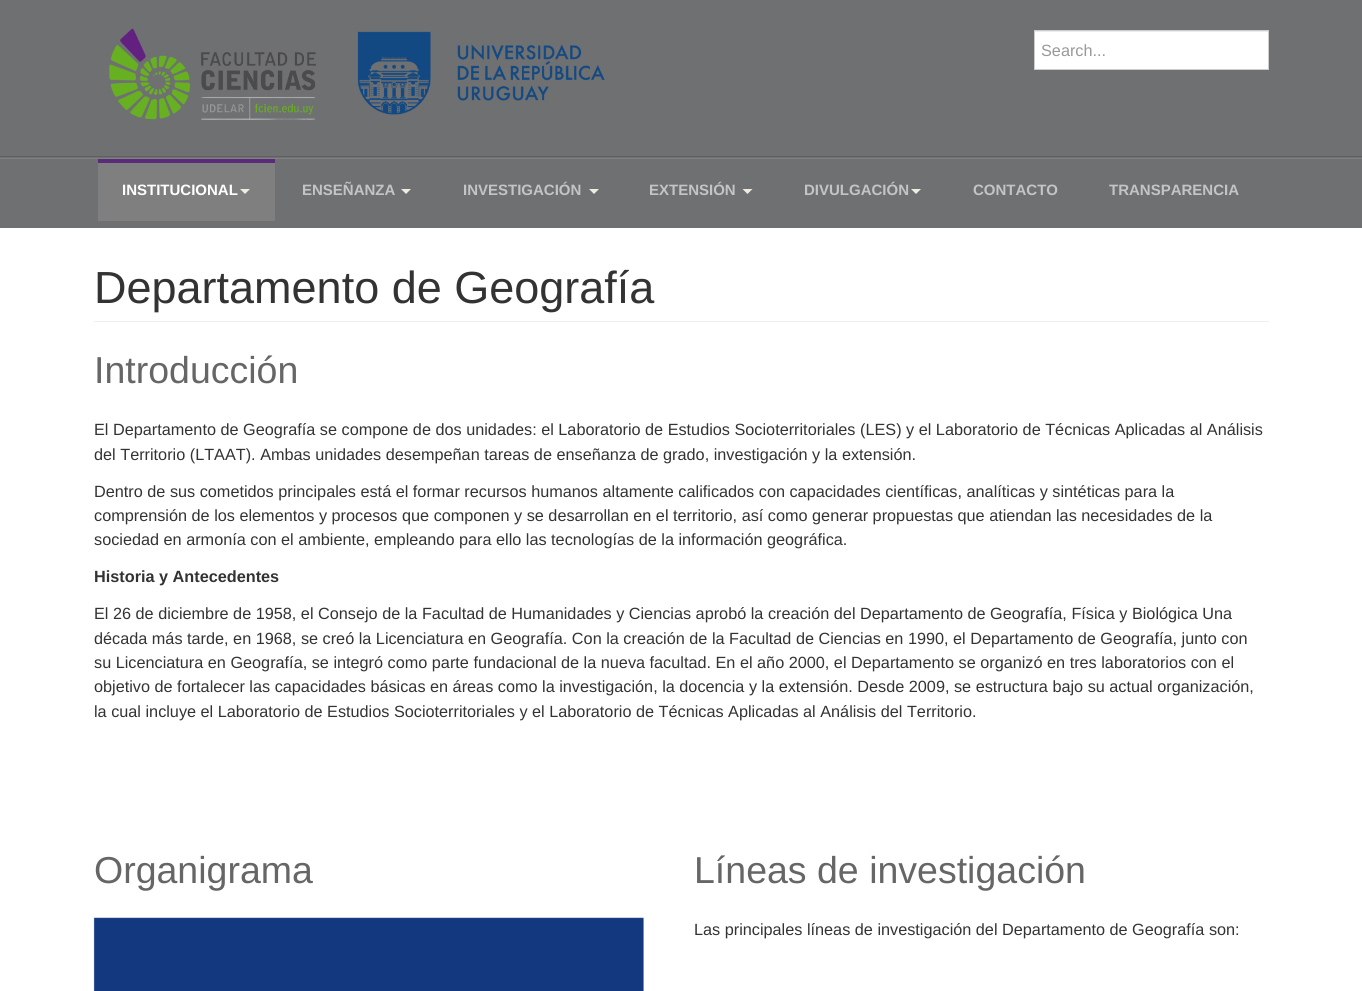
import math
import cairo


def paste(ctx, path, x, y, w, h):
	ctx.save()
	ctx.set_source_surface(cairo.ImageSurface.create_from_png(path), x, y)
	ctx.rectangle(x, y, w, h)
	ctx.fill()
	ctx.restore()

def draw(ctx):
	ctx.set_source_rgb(1, 1, 1)
	ctx.paint()
	ctx.set_source_rgb(0.435, 0.439, 0.447)
	ctx.rectangle(0, 0, 1362, 158)
	ctx.fill()
	ctx.set_source_rgb(0.376, 0.376, 0.376)
	ctx.rectangle(0, 156, 1362, 1)
	ctx.fill()
	paste(ctx, 'media/1.png', 109, 28, 496, 92)
	ctx.set_source_rgb(1, 1, 1)
	ctx.rectangle(1035, 32, 233, 37)
	ctx.fill()
	ctx.set_source_rgb(0.925, 0.925, 0.925)
	ctx.rectangle(1035, 31, 233, 1)
	ctx.fill()
	ctx.rectangle(1034.5, 30.5, 234, 39)
	ctx.set_source_rgb(0.8, 0.8, 0.8)
	ctx.set_line_width(1)
	ctx.stroke()
	ctx.select_font_face('Liberation Sans')
	ctx.set_font_size(16.25)
	ctx.set_source_rgb(0.6, 0.6, 0.6)
	ctx.move_to(1041, 56)
	ctx.show_text('Search...')
	ctx.set_source_rgb(0.435, 0.439, 0.447)
	ctx.rectangle(0, 159, 1362, 69)
	ctx.fill()
	ctx.set_source_rgb(0.502, 0.502, 0.502)
	ctx.rectangle(0, 158, 1362, 1)
	ctx.fill()
	ctx.set_source_rgb(0.498, 0.498, 0.498)
	ctx.rectangle(98, 163, 177, 58)
	ctx.fill()
	ctx.set_source_rgb(0.353, 0.165, 0.482)
	ctx.rectangle(98, 159, 177, 4)
	ctx.fill()
	ctx.select_font_face('Liberation Sans', cairo.FONT_SLANT_NORMAL, cairo.FONT_WEIGHT_BOLD)
	ctx.set_font_size(15)
	ctx.set_source_rgb(1, 1, 1)
	ctx.move_to(122, 195)
	ctx.show_text('INSTITUCIONAL')
	ctx.set_source_rgb(0.937, 0.925, 0.882)
	ctx.new_path()
	ctx.move_to(240, 189)
	ctx.line_to(250, 189)
	ctx.line_to(245, 194)
	ctx.close_path()
	ctx.fill()
	ctx.set_source_rgb(0.765, 0.769, 0.773)
	ctx.move_to(302, 195)
	ctx.show_text('ENSEÑANZA')
	ctx.set_source_rgb(0.937, 0.925, 0.882)
	ctx.new_path()
	ctx.move_to(401, 189)
	ctx.line_to(411, 189)
	ctx.line_to(406, 194)
	ctx.close_path()
	ctx.fill()
	ctx.set_source_rgb(0.765, 0.769, 0.773)
	ctx.move_to(463, 195)
	ctx.show_text('INVESTIGACIÓN')
	ctx.set_source_rgb(0.937, 0.925, 0.882)
	ctx.new_path()
	ctx.move_to(589, 189)
	ctx.line_to(599, 189)
	ctx.line_to(594, 194)
	ctx.close_path()
	ctx.fill()
	ctx.set_source_rgb(0.765, 0.769, 0.773)
	ctx.move_to(649, 195)
	ctx.show_text('EXTENSIÓN')
	ctx.set_source_rgb(0.937, 0.925, 0.882)
	ctx.new_path()
	ctx.move_to(742.5, 189)
	ctx.line_to(752.5, 189)
	ctx.line_to(747.5, 194)
	ctx.close_path()
	ctx.fill()
	ctx.set_source_rgb(0.765, 0.769, 0.773)
	ctx.move_to(804, 195)
	ctx.show_text('DIVULGACIÓN')
	ctx.set_source_rgb(0.937, 0.925, 0.882)
	ctx.new_path()
	ctx.move_to(911, 189)
	ctx.line_to(921, 189)
	ctx.line_to(916, 194)
	ctx.close_path()
	ctx.fill()
	ctx.set_source_rgb(0.765, 0.769, 0.773)
	ctx.move_to(973, 195)
	ctx.show_text('CONTACTO')
	ctx.move_to(1109, 195)
	ctx.show_text('TRANSPARENCIA')
	ctx.set_source_rgb(0.933, 0.933, 0.933)
	ctx.rectangle(94, 321, 1175, 1)
	ctx.fill()
	ctx.select_font_face('Liberation Sans')
	ctx.set_font_size(45)
	ctx.set_source_rgb(0.2, 0.2, 0.2)
	ctx.move_to(94, 303)
	ctx.show_text('Departamento de Geografía')
	ctx.set_font_size(37.5)
	ctx.set_source_rgb(0.4, 0.4, 0.4)
	ctx.move_to(94, 383)
	ctx.show_text('Introducción')
	ctx.set_font_size(16.25)
	ctx.set_source_rgb(0.2, 0.2, 0.2)
	for x, y, s in [
		(94, 435, 'El Departamento de Geografía se compone de dos unidades: el Laboratorio de Estudios Socioterritoriales (LES) y el Laboratorio de Técnicas Aplicadas al Análisis'),
		(94, 460, 'del Territorio (LTAAT). Ambas unidades desempeñan tareas de enseñanza de grado, investigación y la extensión.'),
		(94, 497, 'Dentro de sus cometidos principales está el formar recursos humanos altamente calificados con capacidades científicas, analíticas y sintéticas para la'),
		(94, 521, 'comprensión de los elementos y procesos que componen y se desarrollan en el territorio, así como generar propuestas que atiendan las necesidades de la'),
		(94, 545, 'sociedad en armonía con el ambiente, empleando para ello las tecnologías de la información geográfica.'),
	]:
		ctx.move_to(x, y)
		ctx.show_text(s)
	ctx.select_font_face('Liberation Sans', cairo.FONT_SLANT_NORMAL, cairo.FONT_WEIGHT_BOLD)
	ctx.move_to(94, 582)
	ctx.show_text('Historia y Antecedentes')
	ctx.select_font_face('Liberation Sans')
	for x, y, s in [
		(94, 619, 'El 26 de diciembre de 1958, el Consejo de la Facultad de Humanidades y Ciencias aprobó la creación del Departamento de Geografía, Física y Biológica Una'),
		(94, 644, 'década más tarde, en 1968, se creó la Licenciatura en Geografía. Con la creación de la Facultad de Ciencias en 1990, el Departamento de Geografía, junto con'),
		(94, 668, 'su Licenciatura en Geografía, se integró como parte fundacional de la nueva facultad. En el año 2000, el Departamento se organizó en tres laboratorios con el'),
		(94, 692, 'objetivo de fortalecer las capacidades básicas en áreas como la investigación, la docencia y la extensión. Desde 2009, se estructura bajo su actual organización,'),
		(94, 717, 'la cual incluye el Laboratorio de Estudios Socioterritoriales y el Laboratorio de Técnicas Aplicadas al Análisis del Territorio.'),
	]:
		ctx.move_to(x, y)
		ctx.show_text(s)
	ctx.set_font_size(37.5)
	ctx.set_source_rgb(0.4, 0.4, 0.4)
	ctx.move_to(94, 883)
	ctx.show_text('Organigrama')
	paste(ctx, 'media/2.png', 93, 917, 551, 74)
	ctx.move_to(694, 883)
	ctx.show_text('Líneas de investigación')
	ctx.set_font_size(16.25)
	ctx.set_source_rgb(0.2, 0.2, 0.2)
	ctx.move_to(694, 935)
	ctx.show_text('Las principales líneas de investigación del Departamento de Geografía son:')


surface = cairo.ImageSurface(cairo.FORMAT_RGB24, 1362, 991)
ctx = cairo.Context(surface)
options = cairo.FontOptions()
options.set_hint_metrics(cairo.HINT_METRICS_OFF)
options.set_hint_style(cairo.HINT_STYLE_NONE)
ctx.set_font_options(options)
ctx.set_miter_limit(4)
draw(ctx)
surface.write_to_png('image.png')
